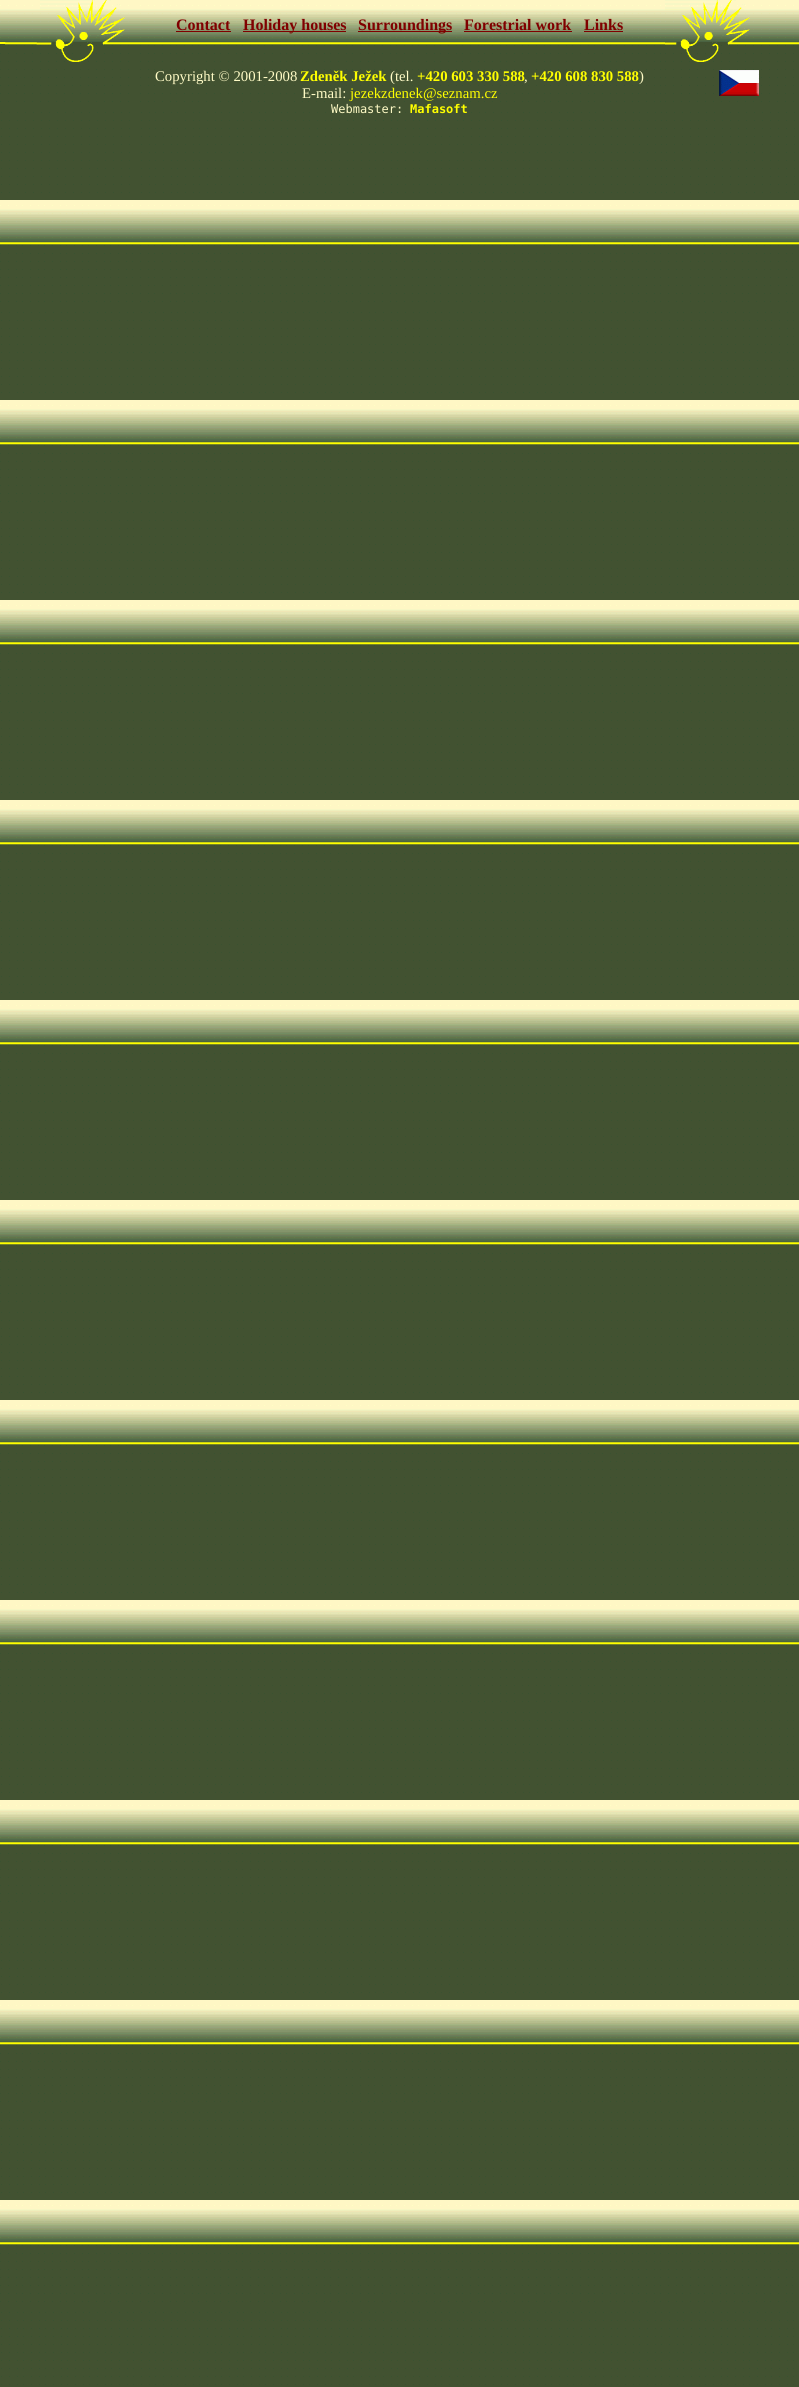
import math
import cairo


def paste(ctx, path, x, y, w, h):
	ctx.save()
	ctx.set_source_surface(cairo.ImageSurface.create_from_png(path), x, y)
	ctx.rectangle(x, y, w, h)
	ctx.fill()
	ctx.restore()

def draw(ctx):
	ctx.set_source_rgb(1, 1, 1)
	ctx.paint()
	paste(ctx, 'media/1.png', 0, 0, 799, 2387)
	paste(ctx, 'media/2.png', 0, 0, 134, 193)
	ctx.select_font_face('Liberation Serif', cairo.FONT_SLANT_NORMAL, cairo.FONT_WEIGHT_BOLD)
	ctx.set_font_size(16)
	ctx.set_source_rgb(0.502, 0, 0)
	ctx.move_to(176, 30)
	ctx.show_text('Contact')
	ctx.rectangle(176, 31, 55, 1)
	ctx.fill()
	ctx.rectangle(243, 31, 103, 1)
	ctx.fill()
	ctx.move_to(243, 30)
	ctx.show_text('Holiday houses')
	ctx.rectangle(358, 31, 94, 1)
	ctx.fill()
	ctx.move_to(358, 30)
	ctx.show_text('Surroundings')
	ctx.move_to(464, 30)
	ctx.show_text('Forestrial work')
	ctx.rectangle(464, 31, 108, 1)
	ctx.fill()
	ctx.move_to(584, 30)
	ctx.show_text('Links')
	ctx.rectangle(584, 31, 39, 1)
	ctx.fill()
	paste(ctx, 'media/3.png', 665, 0, 134, 193)
	ctx.select_font_face('Liberation Serif')
	ctx.set_font_size(14.75)
	ctx.set_source_rgb(1, 0.984, 0.776)
	ctx.move_to(155, 81)
	ctx.show_text('Copyright © 2001-2008')
	ctx.select_font_face('Liberation Serif', cairo.FONT_SLANT_NORMAL, cairo.FONT_WEIGHT_BOLD)
	ctx.set_source_rgb(1, 1, 0)
	ctx.move_to(300, 81)
	ctx.show_text('Zdeněk Ježek')
	ctx.select_font_face('Liberation Serif')
	ctx.set_source_rgb(1, 0.984, 0.776)
	ctx.move_to(390, 81)
	ctx.show_text('(tel.')
	ctx.select_font_face('Liberation Serif', cairo.FONT_SLANT_NORMAL, cairo.FONT_WEIGHT_BOLD)
	ctx.set_source_rgb(1, 1, 0)
	ctx.move_to(417, 81)
	ctx.show_text('+420 603 330 588')
	ctx.select_font_face('Liberation Serif')
	ctx.set_source_rgb(1, 0.984, 0.776)
	ctx.move_to(524, 81)
	ctx.show_text(',')
	ctx.select_font_face('Liberation Serif', cairo.FONT_SLANT_NORMAL, cairo.FONT_WEIGHT_BOLD)
	ctx.set_source_rgb(1, 1, 0)
	ctx.move_to(531, 81)
	ctx.show_text('+420 608 830 588')
	ctx.select_font_face('Liberation Serif')
	ctx.set_source_rgb(1, 0.984, 0.776)
	ctx.move_to(639, 81)
	ctx.show_text(')')
	ctx.move_to(302, 98)
	ctx.show_text('E-mail:')
	ctx.set_source_rgb(1, 1, 0)
	ctx.move_to(350, 98)
	ctx.show_text('jezekzdenek@seznam.cz')
	ctx.select_font_face('DejaVu Sans Mono')
	ctx.set_font_size(12)
	ctx.set_source_rgb(1, 0.984, 0.776)
	ctx.move_to(331, 113)
	ctx.show_text('Webmaster:')
	ctx.select_font_face('DejaVu Sans Mono', cairo.FONT_SLANT_NORMAL, cairo.FONT_WEIGHT_BOLD)
	ctx.set_source_rgb(1, 1, 0)
	ctx.move_to(410, 113)
	ctx.show_text('Mafasoft')
	paste(ctx, 'media/4.png', 719, 70, 40, 26)


surface = cairo.ImageSurface(cairo.FORMAT_RGB24, 799, 2387)
ctx = cairo.Context(surface)
options = cairo.FontOptions()
options.set_hint_metrics(cairo.HINT_METRICS_OFF)
options.set_hint_style(cairo.HINT_STYLE_NONE)
ctx.set_font_options(options)
ctx.set_miter_limit(4)
draw(ctx)
surface.write_to_png('image.png')
